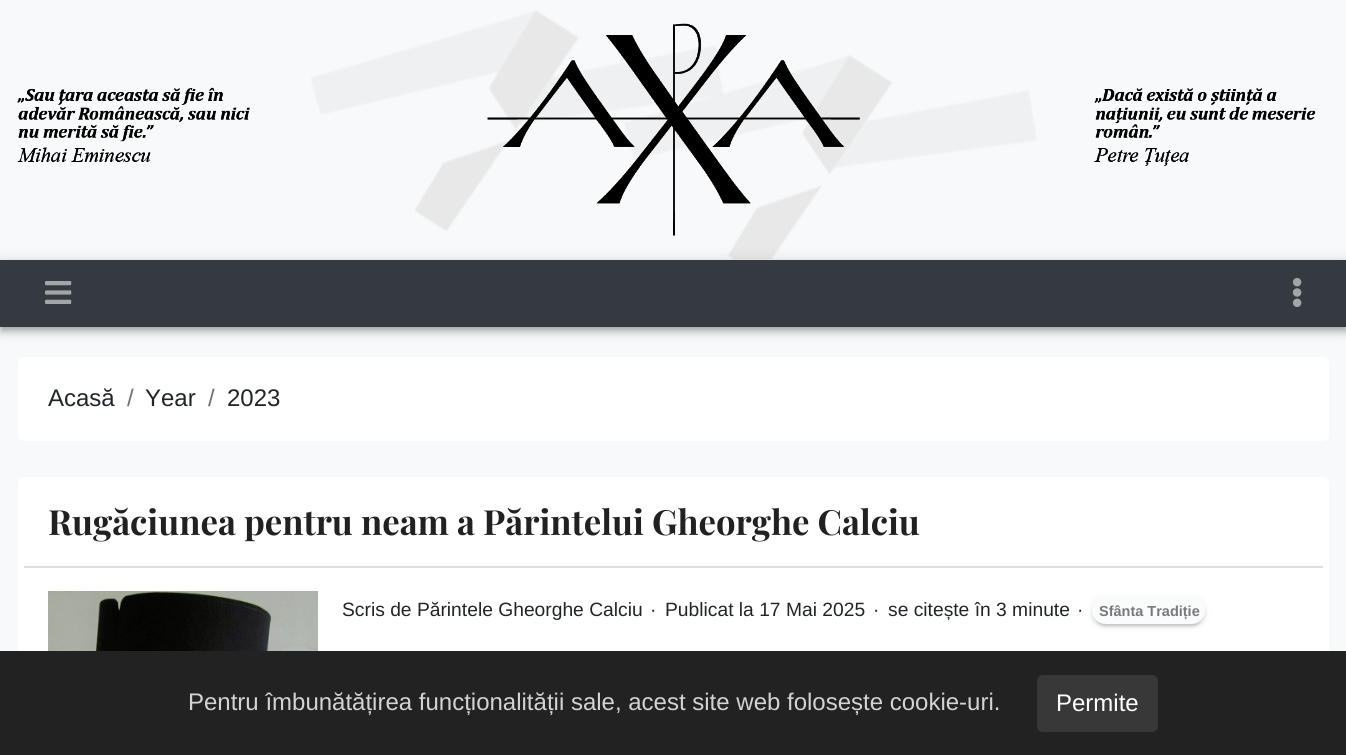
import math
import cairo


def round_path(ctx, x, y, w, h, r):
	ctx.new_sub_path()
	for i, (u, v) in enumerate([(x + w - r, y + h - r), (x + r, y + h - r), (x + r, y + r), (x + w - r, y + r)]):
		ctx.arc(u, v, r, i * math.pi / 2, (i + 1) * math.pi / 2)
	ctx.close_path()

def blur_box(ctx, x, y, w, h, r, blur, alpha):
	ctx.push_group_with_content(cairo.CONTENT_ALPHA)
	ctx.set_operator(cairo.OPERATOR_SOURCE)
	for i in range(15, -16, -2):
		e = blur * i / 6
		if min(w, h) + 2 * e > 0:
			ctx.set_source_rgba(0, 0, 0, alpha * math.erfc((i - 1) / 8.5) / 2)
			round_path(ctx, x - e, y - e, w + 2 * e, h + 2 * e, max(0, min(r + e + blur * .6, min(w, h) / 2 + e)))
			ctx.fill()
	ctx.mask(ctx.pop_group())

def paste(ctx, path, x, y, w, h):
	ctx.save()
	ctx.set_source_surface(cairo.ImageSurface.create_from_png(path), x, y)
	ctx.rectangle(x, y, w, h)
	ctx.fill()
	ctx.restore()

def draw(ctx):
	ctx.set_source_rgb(0.965, 0.973, 0.98)
	ctx.paint()
	paste(ctx, 'media/1.png', 17, 10, 1299, 250)
	paste(ctx, 'media/2.png', 17, 23, 1299, 213)
	ctx.set_source_rgb(0, 0, 0)
	blur_box(ctx, 0, 261, 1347, 68, 0, 7.5, 0.12)
	blur_box(ctx, 0, 266, 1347, 67, 0, 4, 0.14)
	blur_box(ctx, 2, 264, 1344, 65, 0, 3, 0.2)
	ctx.set_source_rgb(0.204, 0.227, 0.251)
	ctx.rectangle(0, 260, 1346, 67)
	ctx.fill()
	paste(ctx, 'media/3.png', 45, 281, 27, 23)
	paste(ctx, 'media/4.png', 1292, 278, 10, 29)
	ctx.set_source_rgb(1, 1, 1)
	round_path(ctx, 18, 357, 1311, 84, 6)
	ctx.fill()
	ctx.select_font_face('Liberation Sans')
	ctx.set_font_size(24)
	ctx.set_source_rgb(0.129, 0.145, 0.161)
	ctx.move_to(48, 406)
	ctx.show_text('Acasă')
	ctx.set_source_rgb(0.424, 0.459, 0.49)
	ctx.move_to(127, 406)
	ctx.show_text('/')
	ctx.set_source_rgb(0.129, 0.145, 0.161)
	ctx.move_to(145, 406)
	ctx.show_text('Year')
	ctx.set_source_rgb(0.424, 0.459, 0.49)
	ctx.move_to(208, 406)
	ctx.show_text('/')
	ctx.set_source_rgb(0.129, 0.145, 0.161)
	ctx.move_to(227, 406)
	ctx.show_text('2023')
	ctx.set_source_rgb(1, 1, 1)
	round_path(ctx, 18, 477, 1311, 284, 6)
	ctx.fill()
	ctx.set_source_rgb(0.875, 0.875, 0.875)
	ctx.rectangle(24, 566, 1299, 2)
	ctx.fill()
	ctx.select_font_face('Playfair Display', cairo.FONT_SLANT_NORMAL, cairo.FONT_WEIGHT_BOLD)
	ctx.set_font_size(34.65)
	ctx.set_source_rgb(0.129, 0.129, 0.129)
	ctx.move_to(48, 535)
	ctx.show_text('Rugăciunea pentru neam a Părintelui Gheorghe Calciu')
	paste(ctx, 'media/5.png', 48, 591, 270, 60)
	ctx.select_font_face('Liberation Sans')
	ctx.set_font_size(19.25)
	ctx.set_source_rgb(0.129, 0.145, 0.161)
	for x, y, s in [
		(342, 616, 'Scris de Părintele Gheorghe Calciu'),
		(650, 616, '·'),
		(665, 616, 'Publicat la 17 Mai 2025'),
		(873, 616, '·'),
		(888, 616, 'se citește în 3 minute'),
		(1077, 616, '·'),
	]:
		ctx.move_to(x, y)
		ctx.show_text(s)
	ctx.set_source_rgb(0.4, 0.4, 0.4)
	blur_box(ctx, 1092, 599, 113, 27, 13.5, 4, 0.12)
	blur_box(ctx, 1092, 600, 113, 27, 13.5, 1.5, 0.14)
	blur_box(ctx, 1095, 605, 107, 21, 10.5, 1, 0.2)
	ctx.set_source_rgb(0.98, 0.984, 0.988)
	round_path(ctx, 1092, 597, 113, 27, 13.5)
	ctx.fill()
	ctx.select_font_face('Liberation Sans', cairo.FONT_SLANT_NORMAL, cairo.FONT_WEIGHT_BOLD)
	ctx.set_font_size(14.5)
	ctx.set_source_rgb(0.475, 0.475, 0.478)
	ctx.move_to(1099, 616)
	ctx.show_text('Sfânta Tradiție')
	ctx.set_source_rgb(0.133, 0.133, 0.133)
	ctx.rectangle(0, 651, 1346, 104)
	ctx.fill()
	ctx.select_font_face('Liberation Sans')
	ctx.set_font_size(24)
	ctx.set_source_rgb(0.827, 0.827, 0.827)
	ctx.move_to(188, 710)
	ctx.show_text('Pentru îmbunătățirea funcționalității sale, acest site web folosește cookie-uri.')
	ctx.set_source_rgba(1, 1, 1, 0.1)
	round_path(ctx, 1037, 675, 121, 57, 6)
	ctx.fill()
	ctx.set_source_rgb(1, 1, 1)
	ctx.move_to(1056, 711)
	ctx.show_text('Permite')


surface = cairo.ImageSurface(cairo.FORMAT_RGB24, 1346, 755)
ctx = cairo.Context(surface)
options = cairo.FontOptions()
options.set_hint_metrics(cairo.HINT_METRICS_OFF)
options.set_hint_style(cairo.HINT_STYLE_NONE)
ctx.set_font_options(options)
ctx.set_miter_limit(4)
draw(ctx)
surface.write_to_png('image.png')
